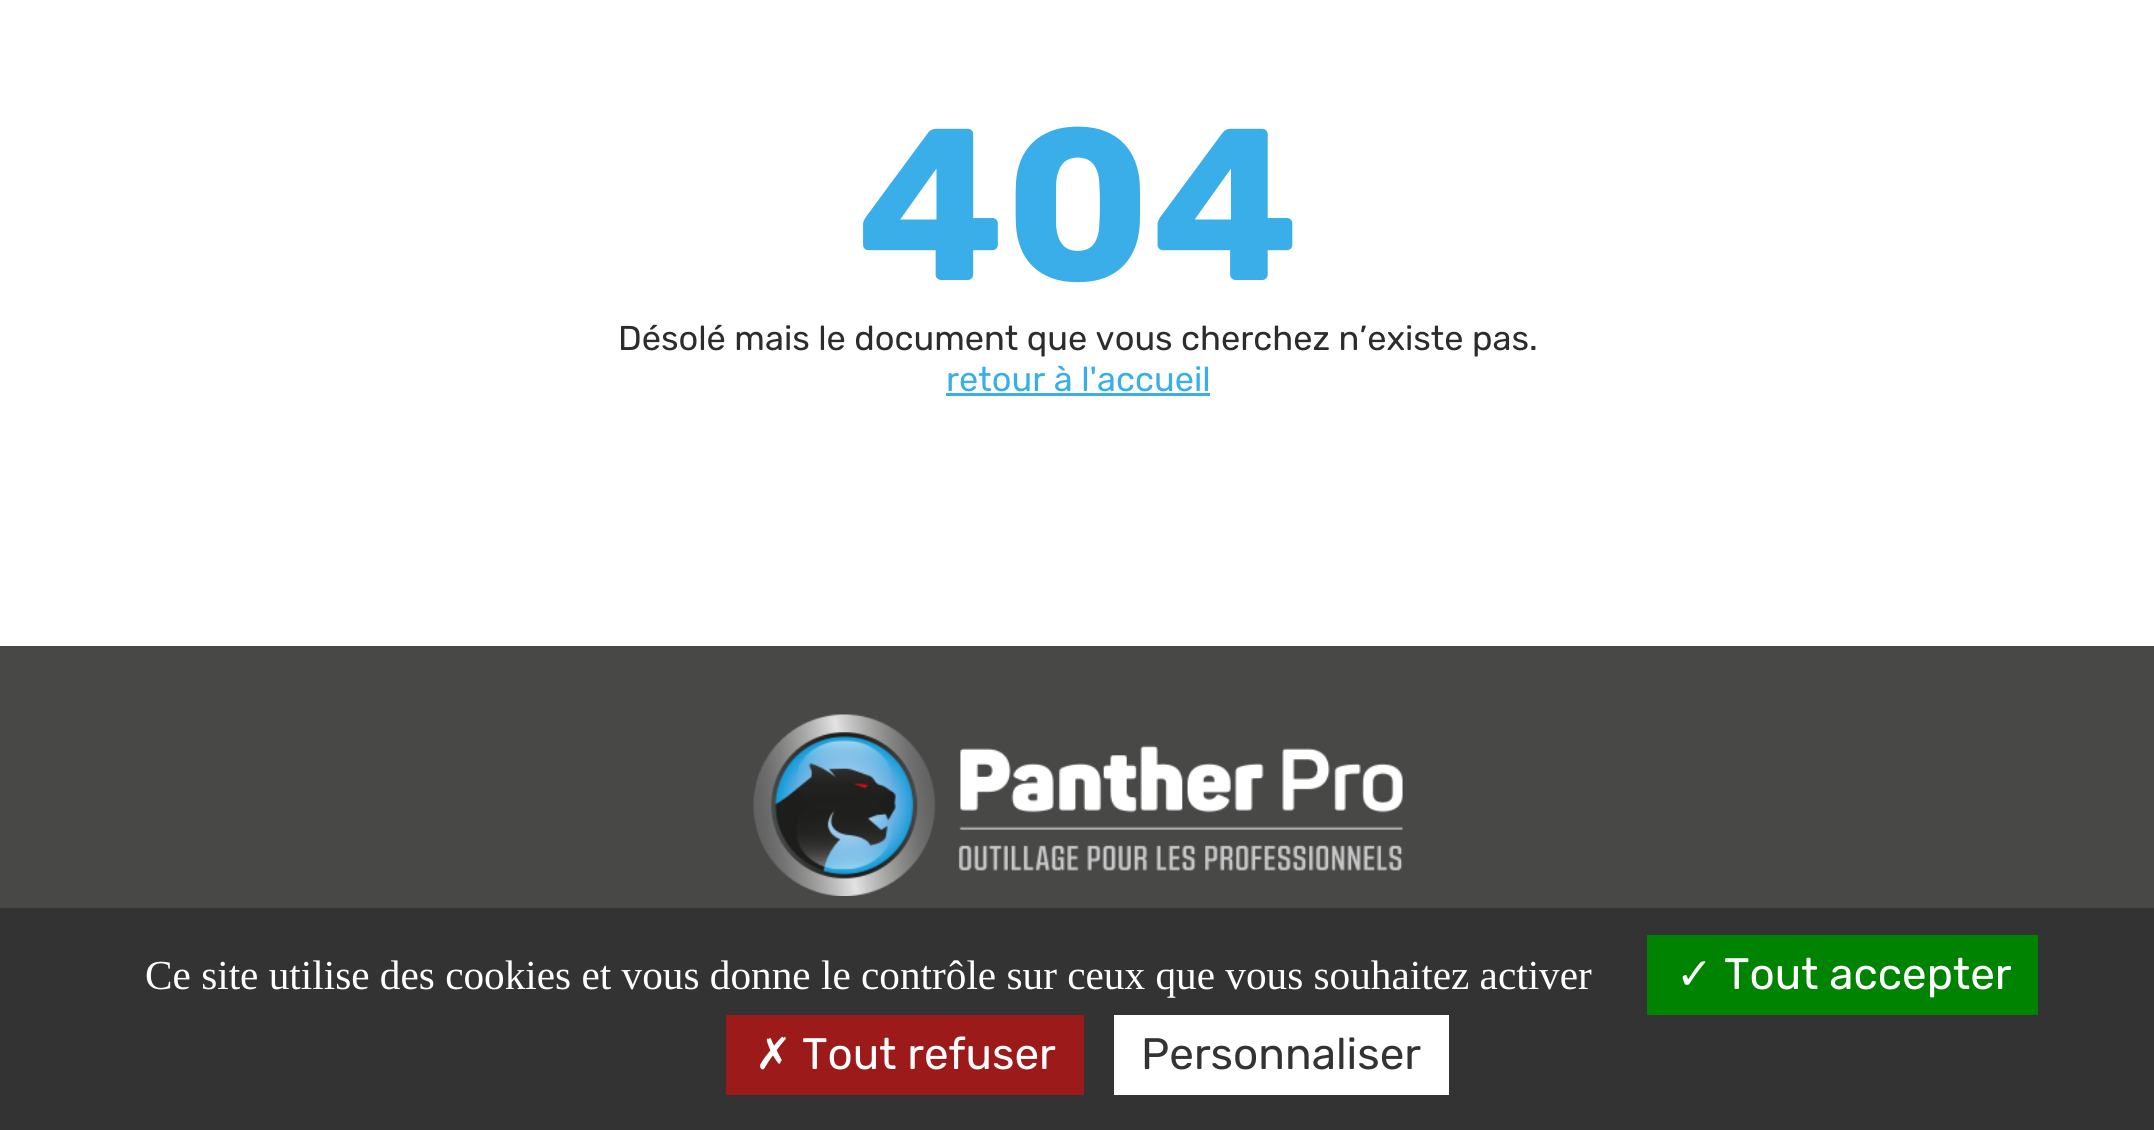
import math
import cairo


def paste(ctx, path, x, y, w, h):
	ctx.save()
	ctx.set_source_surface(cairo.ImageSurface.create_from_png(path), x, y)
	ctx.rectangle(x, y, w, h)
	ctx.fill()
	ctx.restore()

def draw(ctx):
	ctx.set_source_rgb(1, 1, 1)
	ctx.paint()
	ctx.select_font_face('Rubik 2 Light')
	ctx.set_font_size(216)
	ctx.set_source_rgb(0.224, 0.682, 0.914)
	ctx.move_to(857, 280)
	ctx.show_text('404')
	ctx.select_font_face('Rubik Light')
	ctx.set_font_size(34.4)
	ctx.set_source_rgb(0.173, 0.173, 0.173)
	ctx.move_to(618, 350)
	ctx.show_text('Désolé mais le document que vous cherchez n’existe pas.')
	ctx.set_source_rgb(0.224, 0.682, 0.914)
	ctx.move_to(946, 391)
	ctx.show_text('retour à l\'accueil')
	ctx.rectangle(946, 393, 264, 3)
	ctx.fill()
	ctx.set_source_rgb(0.282, 0.282, 0.278)
	ctx.rectangle(0, 646, 2154, 262)
	ctx.fill()
	paste(ctx, 'media/1.png', 753, 714, 650, 182)
	ctx.set_source_rgb(0.2, 0.2, 0.2)
	ctx.rectangle(0, 908, 2154, 222)
	ctx.fill()
	ctx.select_font_face('Liberation Serif')
	ctx.set_font_size(41.25)
	ctx.set_source_rgb(1, 1, 1)
	ctx.move_to(145, 989)
	ctx.show_text('Ce site utilise des cookies et vous donne le contrôle sur ceux que vous souhaitez activer')
	ctx.set_source_rgb(0, 0.514, 0)
	ctx.rectangle(1647, 935, 391, 80)
	ctx.fill()
	ctx.select_font_face('DejaVu Sans')
	ctx.set_font_size(44)
	ctx.set_source_rgb(1, 1, 1)
	ctx.move_to(1676, 989)
	ctx.show_text('✓')
	ctx.select_font_face('Rubik Light')
	ctx.move_to(1724, 989)
	ctx.show_text('Tout accepter')
	ctx.set_source_rgb(0.612, 0.102, 0.102)
	ctx.rectangle(726, 1015, 358, 80)
	ctx.fill()
	ctx.select_font_face('DejaVu Sans')
	ctx.set_source_rgb(1, 1, 1)
	ctx.move_to(755, 1069)
	ctx.show_text('✗')
	ctx.select_font_face('Rubik Light')
	ctx.move_to(802, 1069)
	ctx.show_text('Tout refuser')
	ctx.rectangle(1114, 1015, 335, 80)
	ctx.fill()
	ctx.set_source_rgb(0.2, 0.2, 0.2)
	ctx.move_to(1141, 1069)
	ctx.show_text('Personnaliser')


surface = cairo.ImageSurface(cairo.FORMAT_RGB24, 2154, 1130)
ctx = cairo.Context(surface)
options = cairo.FontOptions()
options.set_hint_metrics(cairo.HINT_METRICS_OFF)
options.set_hint_style(cairo.HINT_STYLE_NONE)
ctx.set_font_options(options)
ctx.set_miter_limit(4)
draw(ctx)
surface.write_to_png('image.png')
